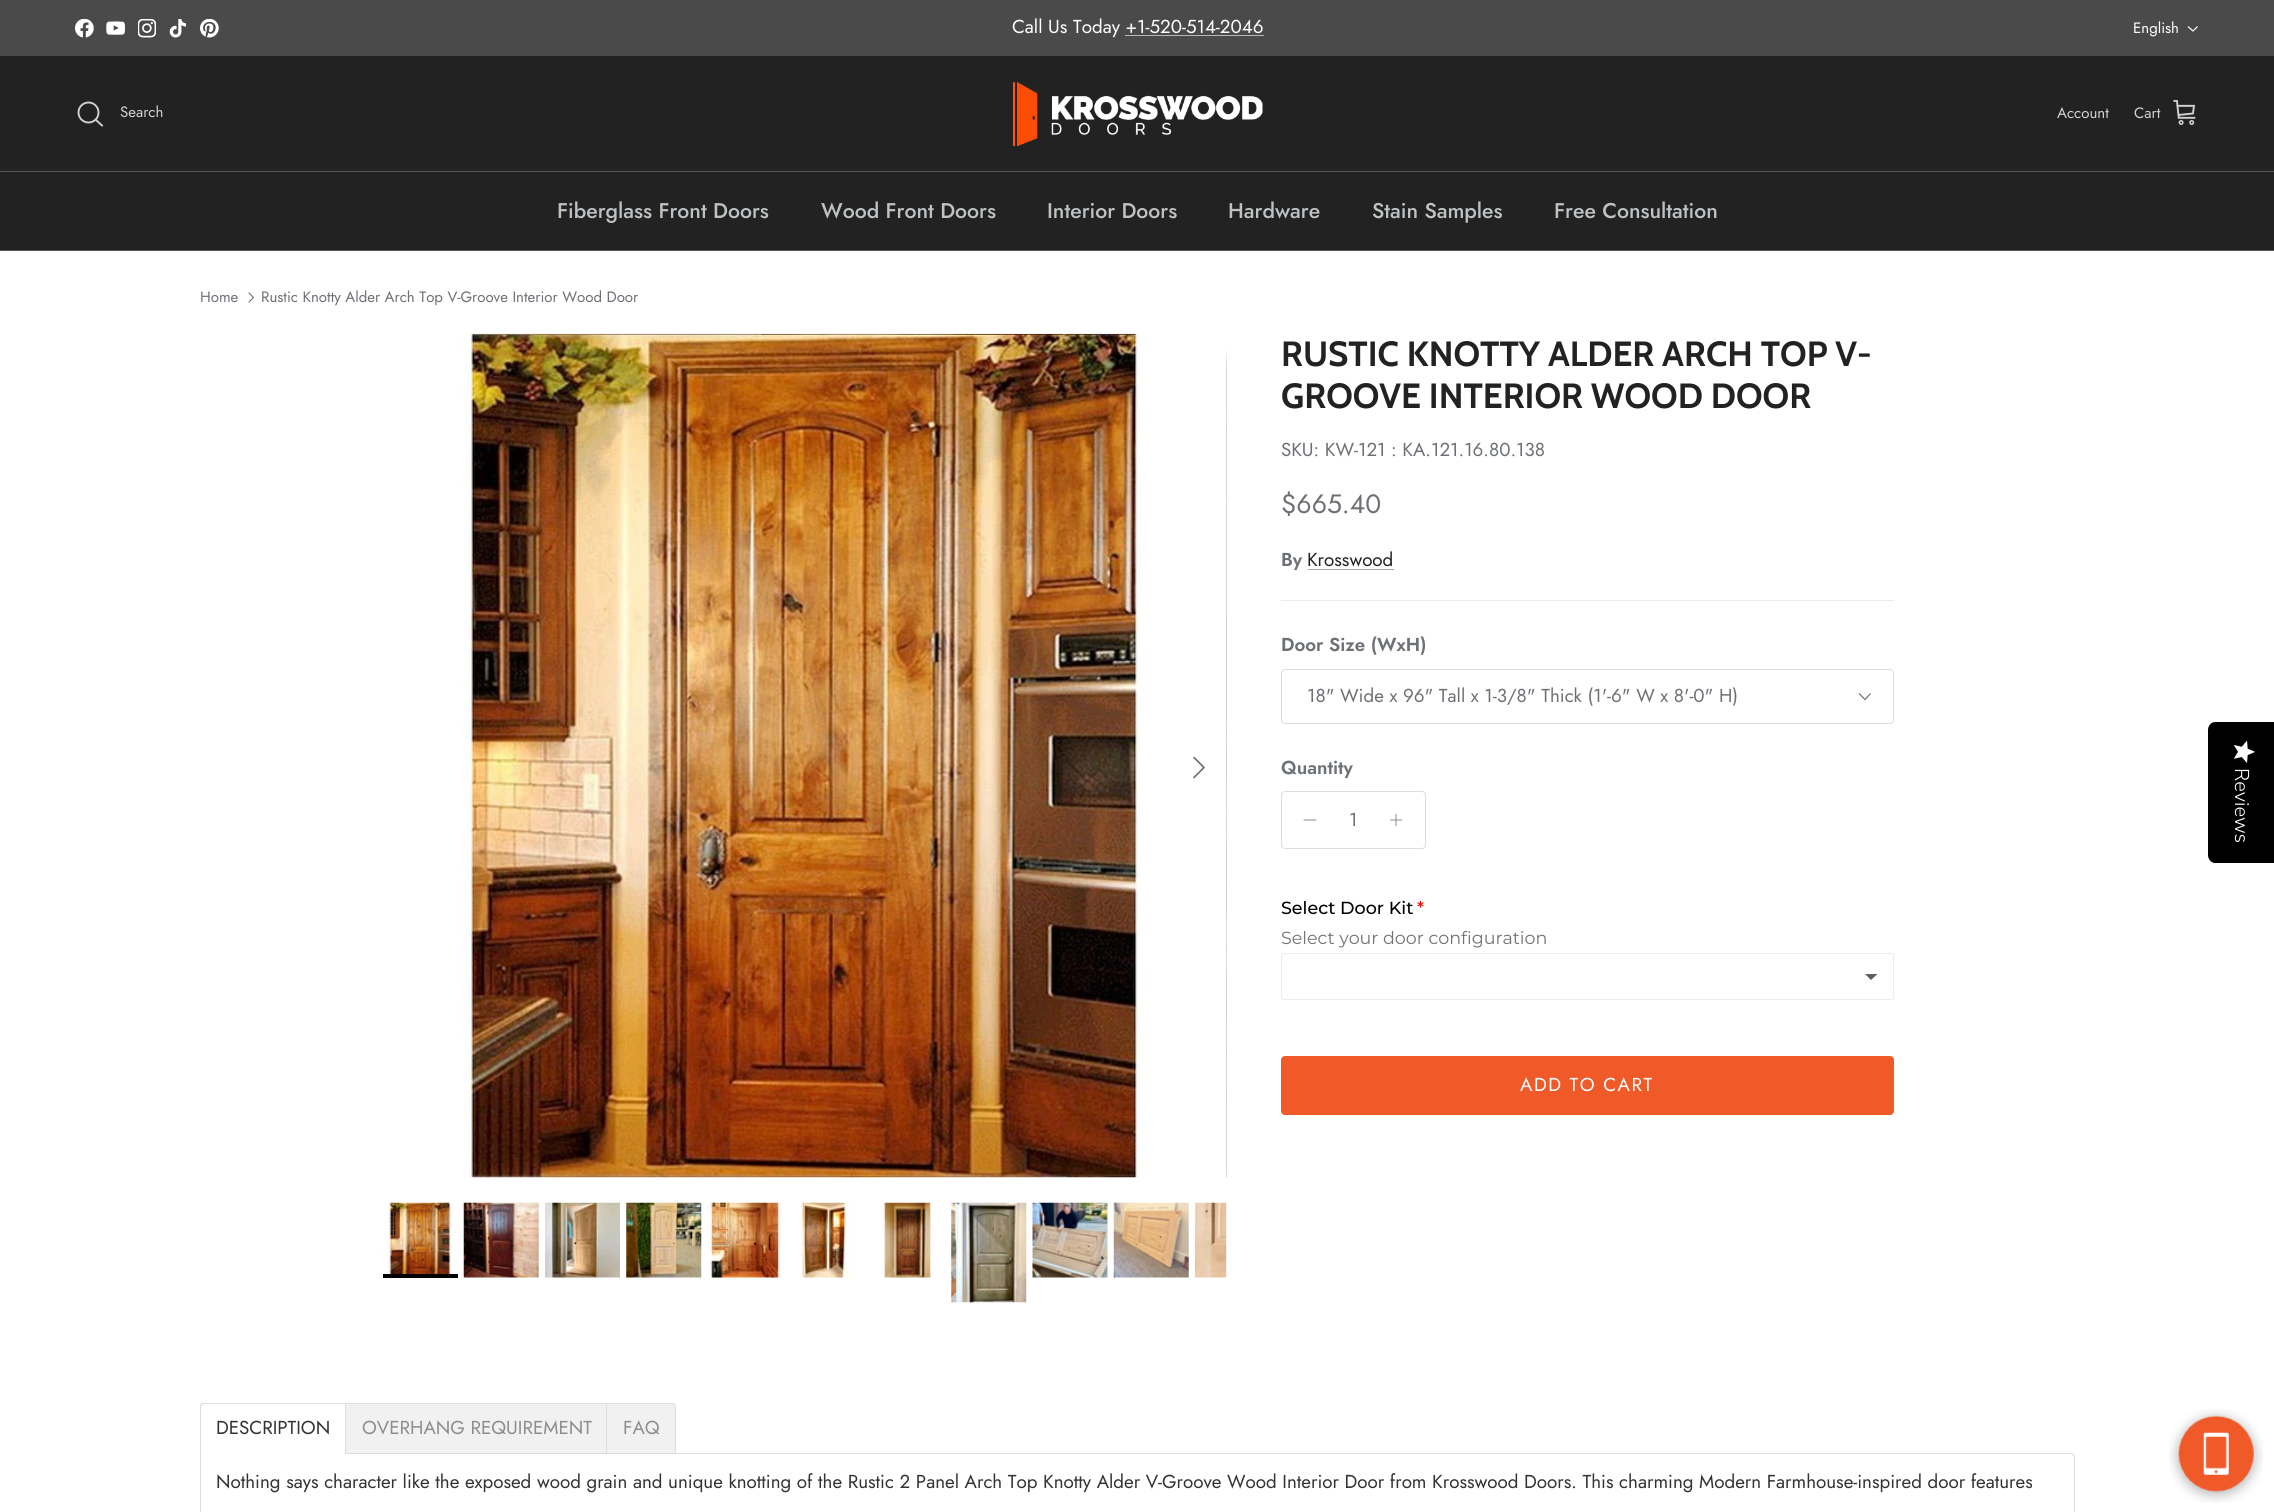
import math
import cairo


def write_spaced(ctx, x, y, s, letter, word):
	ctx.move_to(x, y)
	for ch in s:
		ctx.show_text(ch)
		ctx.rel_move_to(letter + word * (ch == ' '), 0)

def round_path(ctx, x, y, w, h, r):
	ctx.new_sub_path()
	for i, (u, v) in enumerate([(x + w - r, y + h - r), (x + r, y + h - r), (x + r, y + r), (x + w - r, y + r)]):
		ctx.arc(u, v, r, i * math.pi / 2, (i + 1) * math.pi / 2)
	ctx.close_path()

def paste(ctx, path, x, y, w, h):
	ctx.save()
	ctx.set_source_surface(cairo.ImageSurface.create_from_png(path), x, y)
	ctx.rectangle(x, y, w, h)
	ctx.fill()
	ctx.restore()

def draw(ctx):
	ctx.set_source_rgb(1, 1, 1)
	ctx.paint()
	ctx.set_source_rgb(0.29, 0.29, 0.29)
	ctx.rectangle(0, 0, 2274, 56)
	ctx.fill()
	paste(ctx, 'media/1.png', 75, 19, 19, 19)
	paste(ctx, 'media/2.png', 106, 21, 19, 14)
	paste(ctx, 'media/3.png', 138, 19, 18, 19)
	paste(ctx, 'media/4.png', 169, 19, 17, 19)
	paste(ctx, 'media/5.png', 200, 19, 19, 19)
	ctx.select_font_face('Jost')
	ctx.set_font_size(18.75)
	ctx.set_source_rgb(1, 1, 1)
	ctx.move_to(1012, 33)
	ctx.show_text('Call Us Today +1-520-514-2046')
	ctx.set_source_rgb(0.718, 0.718, 0.718)
	ctx.rectangle(1125, 35, 139, 1)
	ctx.fill()
	ctx.set_font_size(15)
	ctx.set_source_rgb(1, 1, 1)
	ctx.move_to(2133, 33)
	ctx.show_text('English')
	ctx.new_path()
	ctx.move_to(2197.5, 26.5)
	ctx.line_to(2193, 31)
	ctx.line_to(2188, 26.5)
	ctx.set_line_width(1.2)
	ctx.stroke()
	ctx.set_source_rgb(0.133, 0.133, 0.133)
	ctx.rectangle(0, 56, 2274, 194)
	ctx.fill()
	ctx.set_source_rgb(0.333, 0.337, 0.345)
	ctx.rectangle(0, 171, 2274, 1)
	ctx.fill()
	ctx.arc(88.5, 112.5, 10, 0, 2 * math.pi)
	ctx.set_source_rgb(0.824, 0.824, 0.824)
	ctx.set_line_width(1.9)
	ctx.stroke()
	ctx.move_to(120, 117)
	ctx.show_text('Search')
	ctx.new_path()
	ctx.move_to(96, 120)
	ctx.line_to(102, 125.5)
	ctx.set_line_cap(cairo.LINE_CAP_SQUARE)
	ctx.stroke()
	paste(ctx, 'media/6.png', 1013, 82, 250, 65)
	ctx.move_to(2057, 118)
	ctx.show_text('Account')
	ctx.move_to(2134, 118)
	ctx.show_text('Cart')
	paste(ctx, 'media/7.png', 2173, 100, 23, 25)
	ctx.set_source_rgb(0.333, 0.337, 0.345)
	ctx.rectangle(0, 250, 2274, 1)
	ctx.fill()
	ctx.select_font_face('Jost Medium')
	ctx.set_font_size(21.25)
	ctx.set_source_rgb(0.749, 0.761, 0.769)
	for x, y, s in [
		(557, 218, 'Fiberglass Front Doors'),
		(821, 218, 'Wood Front Doors'),
		(1047, 218, 'Interior Doors'),
		(1228, 218, 'Hardware'),
		(1372, 218, 'Stain Samples'),
		(1554, 218, 'Free Consultation'),
	]:
		ctx.move_to(x, y)
		ctx.show_text(s)
	ctx.select_font_face('Jost')
	ctx.set_font_size(15)
	ctx.set_source_rgb(0.427, 0.443, 0.459)
	ctx.move_to(200, 302)
	ctx.show_text('Home')
	ctx.new_path()
	ctx.move_to(249, 302)
	ctx.line_to(253.5, 297.5)
	ctx.line_to(249, 293)
	ctx.set_line_width(1.1)
	ctx.set_line_cap(cairo.LINE_CAP_ROUND)
	ctx.set_line_join(cairo.LINE_JOIN_ROUND)
	ctx.stroke()
	ctx.move_to(261, 302)
	ctx.show_text('Rustic Knotty Alder Arch Top V-Groove Interior Wood Door')
	paste(ctx, 'media/8.png', 460, 333, 687, 845)
	paste(ctx, 'media/9.png', 1226, 349, 1, 829)
	ctx.new_path()
	ctx.move_to(1194, 777.5)
	ctx.line_to(1204, 767.5)
	ctx.line_to(1194, 757.5)
	ctx.set_line_width(1.7)
	ctx.stroke()
	paste(ctx, 'media/10.png', 383, 1202, 74, 72)
	ctx.set_source_rgb(0, 0, 0)
	ctx.rectangle(383, 1274, 75, 4)
	ctx.fill()
	paste(ctx, 'media/11.png', 463, 1202, 76, 76)
	paste(ctx, 'media/12.png', 545, 1202, 75, 76)
	paste(ctx, 'media/13.png', 626, 1202, 76, 76)
	paste(ctx, 'media/14.png', 707, 1202, 74, 76)
	paste(ctx, 'media/15.png', 801, 1202, 52, 76)
	paste(ctx, 'media/16.png', 883, 1202, 49, 76)
	paste(ctx, 'media/17.png', 951, 1202, 76, 101)
	paste(ctx, 'media/18.png', 1032, 1202, 76, 76)
	paste(ctx, 'media/19.png', 1113, 1202, 76, 76)
	paste(ctx, 'media/20.png', 1195, 1202, 32, 76)
	ctx.select_font_face('Cabin', cairo.FONT_SLANT_NORMAL, cairo.FONT_WEIGHT_BOLD)
	ctx.set_font_size(35)
	ctx.set_source_rgb(0.125, 0.133, 0.137)
	ctx.move_to(1281, 366)
	ctx.show_text('RUSTIC KNOTTY ALDER ARCH TOP V-')
	ctx.move_to(1281, 408)
	ctx.show_text('GROOVE INTERIOR WOOD DOOR')
	ctx.select_font_face('Jost')
	ctx.set_font_size(18.75)
	ctx.set_source_rgb(0.427, 0.443, 0.459)
	ctx.move_to(1281, 456)
	ctx.show_text('SKU: KW-121 : KA.121.16.80.138')
	ctx.set_font_size(26.5)
	ctx.move_to(1281, 513)
	ctx.show_text('$665.40')
	ctx.select_font_face('Jost SemiBold')
	ctx.set_font_size(18.75)
	ctx.move_to(1281, 566)
	ctx.show_text('By')
	ctx.select_font_face('Jost')
	ctx.set_source_rgb(0.125, 0.133, 0.137)
	ctx.move_to(1307, 566)
	ctx.show_text('Krosswood')
	ctx.set_source_rgb(0.651, 0.655, 0.655)
	ctx.rectangle(1308, 569, 86, 1)
	ctx.fill()
	ctx.set_source_rgb(0.922, 0.922, 0.925)
	ctx.rectangle(1281, 600, 613, 1)
	ctx.fill()
	ctx.select_font_face('Jost SemiBold')
	ctx.set_source_rgb(0.427, 0.443, 0.459)
	ctx.move_to(1281, 651)
	ctx.show_text('Door Size (WxH)')
	round_path(ctx, 1281.5, 669.5, 612, 54, 3.5)
	ctx.set_source_rgb(0.859, 0.863, 0.867)
	ctx.set_line_width(1)
	ctx.set_line_cap(cairo.LINE_CAP_BUTT)
	ctx.set_line_join(cairo.LINE_JOIN_MITER)
	ctx.stroke()
	ctx.select_font_face('Jost')
	ctx.set_source_rgb(0.427, 0.443, 0.459)
	ctx.move_to(1307, 702)
	ctx.show_text('18" Wide x 96" Tall x 1-3/8" Thick (1\'-6" W x 8\'-0" H)')
	ctx.new_path()
	ctx.move_to(1870.5, 693.5)
	ctx.line_to(1865, 699.5)
	ctx.line_to(1859, 693.5)
	ctx.set_line_width(1.2)
	ctx.stroke()
	ctx.select_font_face('Jost SemiBold')
	ctx.move_to(1281, 774)
	ctx.show_text('Quantity')
	round_path(ctx, 1281.5, 791.5, 144, 57, 3.5)
	ctx.set_source_rgb(0.859, 0.863, 0.867)
	ctx.set_line_width(1)
	ctx.stroke()
	ctx.new_path()
	ctx.move_to(1304, 820)
	ctx.line_to(1316, 820)
	ctx.set_source_rgb(0.427, 0.443, 0.459)
	ctx.set_line_width(0.8)
	ctx.set_line_cap(cairo.LINE_CAP_ROUND)
	ctx.set_line_join(cairo.LINE_JOIN_ROUND)
	ctx.stroke()
	ctx.select_font_face('Jost')
	ctx.move_to(1349, 826)
	ctx.show_text('1')
	ctx.new_path()
	ctx.move_to(1396, 814)
	ctx.line_to(1396, 826)
	ctx.move_to(1390.5, 820)
	ctx.line_to(1402, 820)
	ctx.stroke()
	ctx.select_font_face('Montserrat Thin')
	ctx.set_font_size(17.5)
	ctx.set_source_rgb(0, 0, 0)
	ctx.move_to(1281, 914)
	ctx.show_text('Select Door Kit')
	ctx.set_source_rgb(1, 0, 0)
	ctx.move_to(1417, 914)
	ctx.show_text('*')
	ctx.select_font_face('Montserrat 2 Thin')
	ctx.set_source_rgb(0.451, 0.451, 0.451)
	ctx.move_to(1281, 944)
	ctx.show_text('Select your door configuration')
	round_path(ctx, 1281.5, 953.5, 612, 46, 2)
	ctx.set_source_rgb(0.925, 0.922, 0.922)
	ctx.set_line_width(1)
	ctx.set_line_cap(cairo.LINE_CAP_BUTT)
	ctx.set_line_join(cairo.LINE_JOIN_MITER)
	ctx.stroke()
	ctx.set_source_rgb(0.361, 0.373, 0.384)
	ctx.new_path()
	ctx.move_to(1865, 974)
	ctx.line_to(1877.5, 974)
	ctx.line_to(1871, 980)
	ctx.close_path()
	ctx.fill()
	ctx.set_source_rgb(0.941, 0.353, 0.161)
	round_path(ctx, 1281.5, 1056.5, 612, 58, 3.5)
	ctx.fill_preserve()
	ctx.stroke()
	ctx.select_font_face('Jost')
	ctx.set_font_size(18.75)
	ctx.set_source_rgb(1, 1, 1)
	write_spaced(ctx, 1520, 1091, 'ADD TO CART', 1.5, 0)
	ctx.new_path()
	ctx.move_to(200.5, 1453.5)
	ctx.line_to(2071, 1453.5)
	ctx.curve_to(2073, 1453.5, 2074.5, 1455, 2074.5, 1457)
	ctx.line_to(2074.5, 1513)
	ctx.curve_to(2074.5, 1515, 2073, 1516.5, 2071, 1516.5)
	ctx.line_to(204, 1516.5)
	ctx.curve_to(202, 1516.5, 200.5, 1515, 200.5, 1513)
	ctx.close_path()
	ctx.set_source_rgb(0.867, 0.867, 0.867)
	ctx.stroke()
	ctx.set_source_rgb(1, 1, 1)
	ctx.new_path()
	ctx.move_to(203.5, 1404)
	ctx.line_to(345, 1404)
	ctx.line_to(345, 1454)
	ctx.line_to(201, 1454)
	ctx.line_to(201, 1406.5)
	ctx.curve_to(201, 1405, 202, 1404, 203.5, 1404)
	ctx.close_path()
	ctx.fill()
	ctx.save()
	ctx.rectangle(200, 1403, 1875, 51)
	ctx.clip()
	ctx.set_source_rgb(0.867, 0.867, 0.867)
	ctx.set_fill_rule(cairo.FILL_RULE_EVEN_ODD)
	ctx.new_path()
	ctx.move_to(204, 1402)
	ctx.line_to(346, 1402)
	ctx.line_to(346, 1454)
	ctx.line_to(200, 1454)
	ctx.line_to(200, 1406)
	ctx.curve_to(200, 1404, 202, 1402, 204, 1402)
	ctx.close_path()
	ctx.move_to(204, 1404)
	ctx.line_to(345, 1404)
	ctx.line_to(345, 1454)
	ctx.line_to(201, 1454)
	ctx.line_to(201, 1406)
	ctx.curve_to(201, 1405, 202, 1404, 204, 1404)
	ctx.close_path()
	ctx.fill()
	ctx.restore()
	ctx.set_source_rgb(0.2, 0.2, 0.2)
	ctx.move_to(216, 1434)
	ctx.show_text('DESCRIPTION')
	ctx.set_source_rgb(0.945, 0.945, 0.945)
	ctx.rectangle(346, 1404, 260, 49)
	ctx.fill()
	ctx.set_source_rgb(0.867, 0.867, 0.867)
	ctx.rectangle(346, 1403, 260, 1)
	ctx.fill()
	ctx.set_source_rgb(0.553, 0.553, 0.553)
	ctx.move_to(362, 1434)
	ctx.show_text('OVERHANG REQUIREMENT')
	ctx.set_source_rgb(0.945, 0.945, 0.945)
	ctx.new_path()
	ctx.move_to(606.5, 1403.5)
	ctx.line_to(672, 1403.5)
	ctx.curve_to(674, 1403.5, 675.5, 1405, 675.5, 1407)
	ctx.line_to(675.5, 1453.5)
	ctx.line_to(606.5, 1453.5)
	ctx.close_path()
	ctx.fill_preserve()
	ctx.set_source_rgb(0.867, 0.867, 0.867)
	ctx.stroke()
	ctx.set_source_rgb(0.553, 0.553, 0.553)
	ctx.move_to(623, 1434)
	ctx.show_text('FAQ')
	ctx.set_source_rgb(0.2, 0.2, 0.2)
	ctx.move_to(216, 1488)
	ctx.show_text('Nothing says character like the exposed wood grain and unique knotting of the Rustic 2 Panel Arch Top Knotty Alder V-Groove Wood Interior Door from Krosswood Doors. This charming Modern Farmhouse-inspired door features')
	ctx.set_source_rgb(0, 0, 0)
	ctx.new_path()
	ctx.move_to(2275, 722)
	ctx.line_to(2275, 863)
	ctx.line_to(2215, 863)
	ctx.curve_to(2211, 863, 2208, 859, 2208, 855)
	ctx.line_to(2208, 730)
	ctx.curve_to(2208, 726, 2211, 722, 2215, 722)
	ctx.close_path()
	ctx.fill()
	paste(ctx, 'media/21.png', 2233, 741, 22, 22)
	ctx.select_font_face('Nunito Sans Light')
	ctx.set_font_size(20)
	ctx.set_source_rgb(1, 1, 1)
	ctx.save()
	ctx.translate(2235, 768)
	ctx.rotate(90 * math.pi / 180)
	ctx.move_to(0, 0)
	ctx.show_text('Reviews')
	ctx.restore()
	paste(ctx, 'media/22.png', 2169, 1409, 94, 94)


surface = cairo.ImageSurface(cairo.FORMAT_RGB24, 2274, 1512)
ctx = cairo.Context(surface)
options = cairo.FontOptions()
options.set_hint_metrics(cairo.HINT_METRICS_OFF)
options.set_hint_style(cairo.HINT_STYLE_NONE)
ctx.set_font_options(options)
ctx.set_miter_limit(4)
draw(ctx)
surface.write_to_png('image.png')
